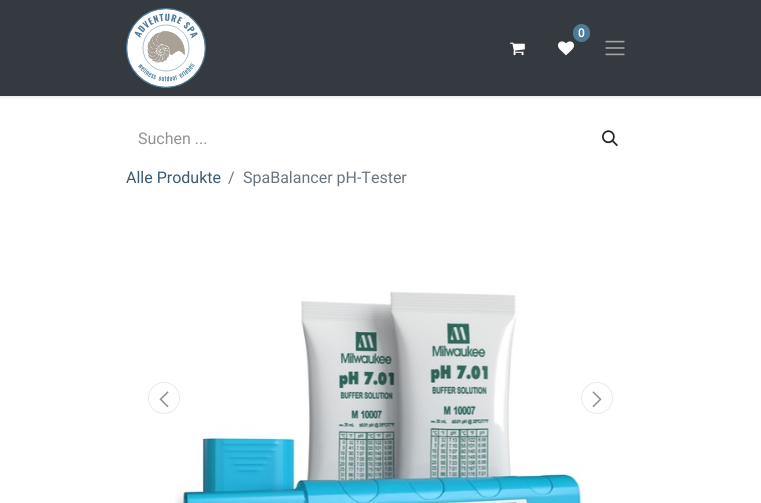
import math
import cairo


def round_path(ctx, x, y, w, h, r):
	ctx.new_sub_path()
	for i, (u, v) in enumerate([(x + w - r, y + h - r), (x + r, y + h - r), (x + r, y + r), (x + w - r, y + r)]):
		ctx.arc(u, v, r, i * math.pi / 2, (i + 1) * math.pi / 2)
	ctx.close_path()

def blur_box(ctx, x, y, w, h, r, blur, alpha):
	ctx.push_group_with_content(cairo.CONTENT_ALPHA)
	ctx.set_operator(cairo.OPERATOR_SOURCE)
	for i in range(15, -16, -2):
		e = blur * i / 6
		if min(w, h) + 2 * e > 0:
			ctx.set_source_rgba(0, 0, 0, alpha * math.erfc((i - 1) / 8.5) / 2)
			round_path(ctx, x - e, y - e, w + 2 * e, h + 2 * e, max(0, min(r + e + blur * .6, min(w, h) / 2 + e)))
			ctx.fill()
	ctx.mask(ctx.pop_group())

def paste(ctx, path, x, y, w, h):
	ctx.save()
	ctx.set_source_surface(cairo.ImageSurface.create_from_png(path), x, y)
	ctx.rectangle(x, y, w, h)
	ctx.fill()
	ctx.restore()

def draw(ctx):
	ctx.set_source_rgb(1, 1, 1)
	ctx.paint()
	ctx.set_source_rgb(0, 0, 0)
	blur_box(ctx, 0, 1, 761, 96, 0, 1.5, 0.1)
	ctx.set_source_rgb(0.204, 0.227, 0.251)
	ctx.rectangle(0, 0, 761, 96)
	ctx.fill()
	paste(ctx, 'media/1.png', 126, 8, 80, 80)
	paste(ctx, 'media/2.png', 558, 41, 16, 15)
	ctx.set_source_rgb(0.306, 0.478, 0.596)
	round_path(ctx, 573, 24, 17, 18, 8.5)
	ctx.fill()
	ctx.select_font_face('Roboto SemiBold')
	ctx.set_font_size(12)
	ctx.set_source_rgb(1, 1, 1)
	ctx.move_to(578, 37)
	ctx.show_text('0')
	paste(ctx, 'media/3.png', 510, 42, 15, 14)
	paste(ctx, 'media/4.png', 605, 40, 20, 16)
	ctx.select_font_face('Roboto')
	ctx.set_font_size(16)
	ctx.set_source_rgb(0.565, 0.573, 0.58)
	ctx.move_to(138, 144)
	ctx.show_text('Suchen ...')
	paste(ctx, 'media/5.png', 602, 130, 16, 17)
	ctx.set_source_rgb(0.224, 0.353, 0.439)
	ctx.move_to(126, 183)
	ctx.show_text('Alle Produkte')
	ctx.set_source_rgb(0.424, 0.459, 0.49)
	ctx.move_to(228, 183)
	ctx.show_text('/')
	ctx.move_to(243, 183)
	ctx.show_text('SpaBalancer pH-Tester')
	paste(ctx, 'media/7.png', 175, 291, 408, 212)
	ctx.arc(164, 398, 15.5, 0, 2 * math.pi)
	ctx.set_source_rgb(0.906, 0.918, 0.929)
	ctx.set_line_width(1)
	ctx.stroke()
	paste(ctx, 'media/6.png', 159, 391, 10, 17)
	ctx.arc(597, 398, 15.5, 0, 2 * math.pi)
	ctx.stroke()
	paste(ctx, 'media/8.png', 592, 391, 10, 17)


surface = cairo.ImageSurface(cairo.FORMAT_RGB24, 761, 503)
ctx = cairo.Context(surface)
options = cairo.FontOptions()
options.set_hint_metrics(cairo.HINT_METRICS_OFF)
options.set_hint_style(cairo.HINT_STYLE_NONE)
ctx.set_font_options(options)
ctx.set_miter_limit(4)
draw(ctx)
surface.write_to_png('image.png')
